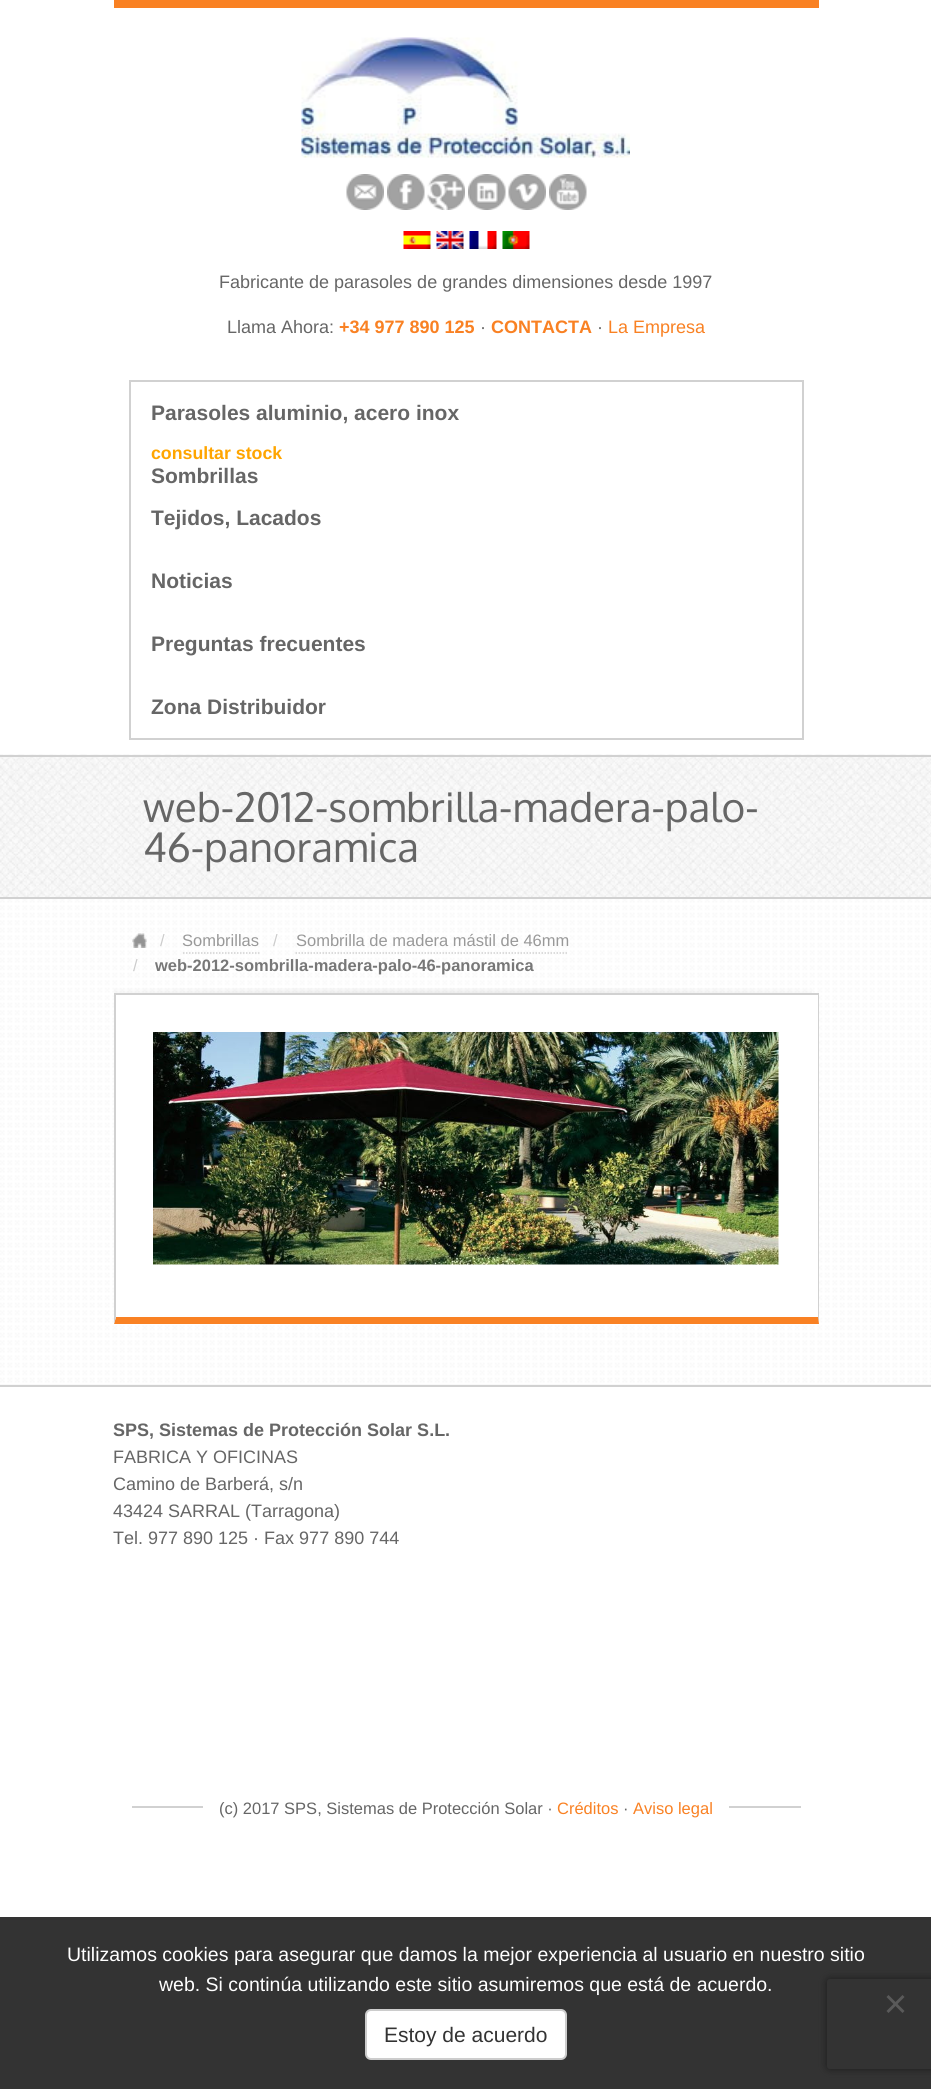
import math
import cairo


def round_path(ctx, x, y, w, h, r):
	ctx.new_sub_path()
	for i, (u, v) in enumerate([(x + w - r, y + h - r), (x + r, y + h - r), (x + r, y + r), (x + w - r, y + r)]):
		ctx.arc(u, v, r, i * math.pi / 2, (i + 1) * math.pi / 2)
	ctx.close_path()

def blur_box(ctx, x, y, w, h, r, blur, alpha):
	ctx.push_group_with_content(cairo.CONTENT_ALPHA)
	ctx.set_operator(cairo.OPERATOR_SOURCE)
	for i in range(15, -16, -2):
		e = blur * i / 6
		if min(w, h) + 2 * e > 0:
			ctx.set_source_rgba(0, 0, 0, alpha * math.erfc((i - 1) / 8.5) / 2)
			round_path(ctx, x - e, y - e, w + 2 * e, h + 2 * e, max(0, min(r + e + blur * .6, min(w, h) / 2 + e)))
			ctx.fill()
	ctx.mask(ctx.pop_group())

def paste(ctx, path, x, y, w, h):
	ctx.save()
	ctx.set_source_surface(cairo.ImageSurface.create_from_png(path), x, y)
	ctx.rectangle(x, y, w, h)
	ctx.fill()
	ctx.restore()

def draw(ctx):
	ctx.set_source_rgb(1, 1, 1)
	ctx.paint()
	ctx.set_source_rgb(0.2, 0.2, 0.2)
	ctx.rectangle(0, 1917, 931, 172)
	ctx.fill()
	ctx.set_source_rgb(0.976, 0.506, 0.137)
	ctx.rectangle(114, 0, 705, 8)
	ctx.fill()
	paste(ctx, 'media/1.png', 301, 37, 329, 121)
	paste(ctx, 'media/2.png', 346, 174, 38, 36)
	paste(ctx, 'media/3.png', 387, 174, 38, 36)
	paste(ctx, 'media/4.png', 427, 174, 38, 36)
	paste(ctx, 'media/5.png', 468, 174, 38, 36)
	paste(ctx, 'media/6.png', 508, 174, 38, 36)
	paste(ctx, 'media/7.png', 549, 174, 38, 36)
	paste(ctx, 'media/8.png', 403, 231, 28, 18)
	paste(ctx, 'media/9.png', 436, 231, 28, 18)
	paste(ctx, 'media/10.png', 469, 231, 28, 18)
	paste(ctx, 'media/11.png', 502, 231, 28, 18)
	ctx.select_font_face('Liberation Sans')
	ctx.set_font_size(18)
	ctx.set_source_rgb(0.4, 0.4, 0.4)
	ctx.move_to(219, 288)
	ctx.show_text('Fabricante de parasoles de grandes dimensiones desde 1997')
	ctx.move_to(227, 333)
	ctx.show_text('Llama Ahora:')
	ctx.select_font_face('Liberation Sans', cairo.FONT_SLANT_NORMAL, cairo.FONT_WEIGHT_BOLD)
	ctx.set_source_rgb(0.976, 0.506, 0.137)
	ctx.move_to(339, 333)
	ctx.show_text('+34 977 890 125')
	ctx.select_font_face('Liberation Sans')
	ctx.set_source_rgb(0.4, 0.4, 0.4)
	ctx.move_to(480, 333)
	ctx.show_text('·')
	ctx.select_font_face('Liberation Sans', cairo.FONT_SLANT_NORMAL, cairo.FONT_WEIGHT_BOLD)
	ctx.set_source_rgb(0.976, 0.506, 0.137)
	ctx.move_to(491, 333)
	ctx.show_text('CONTACTA')
	ctx.select_font_face('Liberation Sans')
	ctx.set_source_rgb(0.4, 0.4, 0.4)
	ctx.move_to(597, 333)
	ctx.show_text('·')
	ctx.set_source_rgb(0.976, 0.506, 0.137)
	ctx.move_to(608, 333)
	ctx.show_text('La Empresa')
	ctx.rectangle(130, 381, 673, 358)
	ctx.set_source_rgb(0.82, 0.82, 0.82)
	ctx.stroke()
	ctx.select_font_face('Liberation Sans', cairo.FONT_SLANT_NORMAL, cairo.FONT_WEIGHT_BOLD)
	ctx.set_font_size(21)
	ctx.set_source_rgb(0.4, 0.4, 0.4)
	ctx.move_to(151, 420)
	ctx.show_text('Parasoles aluminio, acero inox')
	ctx.set_font_size(17.75)
	ctx.set_source_rgb(1, 0.647, 0)
	ctx.move_to(151, 459)
	ctx.show_text('consultar stock')
	ctx.set_font_size(21)
	ctx.set_source_rgb(0.4, 0.4, 0.4)
	for x, y, s in [
		(151, 483, 'Sombrillas'),
		(151, 525, 'Tejidos, Lacados'),
		(151, 588, 'Noticias'),
		(151, 651, 'Preguntas frecuentes'),
		(151, 714, 'Zona Distribuidor'),
	]:
		ctx.move_to(x, y)
		ctx.show_text(s)
	paste(ctx, 'media/12.png', 0, 754, 931, 143)
	ctx.set_source_rgb(0.82, 0.82, 0.82)
	ctx.rectangle(0, 755, 931, 2)
	ctx.fill()
	ctx.select_font_face('Oxygen')
	ctx.set_font_size(40.5)
	ctx.set_source_rgb(0.4, 0.4, 0.4)
	ctx.move_to(143, 822)
	ctx.show_text('web-2012-sombrilla-madera-palo-')
	ctx.move_to(143, 862)
	ctx.show_text('46-panoramica')
	ctx.set_source_rgb(0.949, 0.949, 0.949)
	ctx.rectangle(0, 1384, 931, 1)
	ctx.fill()
	paste(ctx, 'media/13.png', 0, 899, 931, 486)
	ctx.set_source_rgb(0.82, 0.82, 0.82)
	ctx.rectangle(0, 897, 931, 2)
	ctx.fill()
	paste(ctx, 'media/14.png', 132, 933, 15, 15)
	ctx.select_font_face('Liberation Sans')
	ctx.set_font_size(16.5)
	ctx.set_source_rgb(0.8, 0.8, 0.8)
	ctx.move_to(160, 946)
	ctx.show_text('/')
	ctx.set_source_rgb(0.6, 0.6, 0.6)
	ctx.move_to(182, 946)
	ctx.show_text('Sombrillas')
	ctx.new_path()
	ctx.move_to(183, 953)
	ctx.line_to(259.5, 953)
	ctx.set_source_rgb(0.82, 0.82, 0.82)
	ctx.set_line_width(1.5)
	ctx.set_dash([1.5, 1.5])
	ctx.stroke()
	ctx.set_source_rgb(0.8, 0.8, 0.8)
	ctx.move_to(273, 946)
	ctx.show_text('/')
	ctx.set_source_rgb(0.6, 0.6, 0.6)
	ctx.move_to(296, 946)
	ctx.show_text('Sombrilla de madera mástil de 46mm')
	ctx.new_path()
	ctx.move_to(295.5, 953)
	ctx.line_to(568.5, 953)
	ctx.set_source_rgb(0.82, 0.82, 0.82)
	ctx.stroke()
	ctx.set_source_rgb(0.8, 0.8, 0.8)
	ctx.move_to(133, 971)
	ctx.show_text('/')
	ctx.select_font_face('Liberation Sans', cairo.FONT_SLANT_NORMAL, cairo.FONT_WEIGHT_BOLD)
	ctx.set_source_rgb(0.467, 0.467, 0.467)
	ctx.move_to(155, 971)
	ctx.show_text('web-2012-sombrilla-madera-palo-46-panoramica')
	paste(ctx, 'media/15.png', 114, 988, 698, 5)
	ctx.set_source_rgb(1, 1, 1)
	ctx.rectangle(116, 995, 702, 320)
	ctx.fill()
	ctx.set_source_rgb(0.82, 0.82, 0.82)
	ctx.rectangle(114, 993, 705, 2)
	ctx.fill()
	ctx.new_path()
	ctx.move_to(819, 993)
	ctx.line_to(819, 1324)
	ctx.line_to(818, 1317)
	ctx.line_to(818, 994)
	ctx.close_path()
	ctx.fill()
	ctx.set_source_rgb(0.976, 0.506, 0.137)
	ctx.new_path()
	ctx.move_to(819, 1324)
	ctx.line_to(114, 1324)
	ctx.line_to(116, 1317)
	ctx.line_to(818, 1317)
	ctx.close_path()
	ctx.fill()
	ctx.set_source_rgb(0.82, 0.82, 0.82)
	ctx.new_path()
	ctx.move_to(114, 1324)
	ctx.line_to(114, 993)
	ctx.line_to(116, 994)
	ctx.line_to(116, 1317)
	ctx.close_path()
	ctx.fill()
	paste(ctx, 'media/16.png', 153, 1032, 626, 233)
	ctx.rectangle(0, 1385, 931, 2)
	ctx.fill()
	ctx.set_font_size(18)
	ctx.set_source_rgb(0.4, 0.4, 0.4)
	ctx.move_to(113, 1436)
	ctx.show_text('SPS, Sistemas de Protección Solar S.L.')
	ctx.select_font_face('Liberation Sans')
	for x, y, s in [
		(113, 1463, 'FABRICA Y OFICINAS'),
		(113, 1490, 'Camino de Barberá, s/n'),
		(113, 1517, '43424 SARRAL (Tarragona)'),
		(113, 1544, 'Tel. 977 890 125 · Fax 977 890 744'),
	]:
		ctx.move_to(x, y)
		ctx.show_text(s)
	ctx.set_source_rgb(0.82, 0.82, 0.82)
	ctx.rectangle(132, 1806, 669, 2)
	ctx.fill()
	ctx.set_source_rgb(1, 1, 1)
	ctx.rectangle(203, 1806, 526, 2)
	ctx.fill()
	ctx.set_font_size(16.5)
	ctx.set_source_rgb(0.4, 0.4, 0.4)
	ctx.move_to(219, 1814)
	ctx.show_text('(c) 2017 SPS, Sistemas de Protección Solar ·')
	ctx.set_source_rgb(0.976, 0.506, 0.137)
	ctx.move_to(557, 1814)
	ctx.show_text('Créditos')
	ctx.set_source_rgb(0.4, 0.4, 0.4)
	ctx.move_to(623, 1814)
	ctx.show_text('·')
	ctx.set_source_rgb(0.976, 0.506, 0.137)
	ctx.move_to(633, 1814)
	ctx.show_text('Aviso legal')
	ctx.set_font_size(19.5)
	ctx.set_source_rgb(1, 1, 1)
	ctx.move_to(67, 1961)
	ctx.show_text('Utilizamos cookies para asegurar que damos la mejor experiencia al usuario en nuestro sitio')
	ctx.move_to(159, 1991)
	ctx.show_text('web. Si continúa utilizando este sitio asumiremos que está de acuerdo.')
	ctx.save()
	ctx.set_fill_rule(cairo.FILL_RULE_EVEN_ODD)
	ctx.new_path()
	ctx.move_to(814, 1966)
	ctx.line_to(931, 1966)
	ctx.line_to(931, 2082)
	ctx.line_to(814, 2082)
	ctx.close_path()
	ctx.move_to(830, 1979)
	ctx.line_to(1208, 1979)
	ctx.curve_to(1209.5, 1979, 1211, 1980.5, 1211, 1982)
	ctx.line_to(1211, 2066)
	ctx.curve_to(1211, 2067.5, 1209.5, 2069, 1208, 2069)
	ctx.line_to(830, 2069)
	ctx.curve_to(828.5, 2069, 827, 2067.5, 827, 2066)
	ctx.line_to(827, 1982)
	ctx.curve_to(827, 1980.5, 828.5, 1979, 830, 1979)
	ctx.close_path()
	ctx.clip()
	ctx.set_source_rgb(0.102, 0.102, 0.102)
	blur_box(ctx, 827, 1979, 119, 90, 3, 4, 1)
	ctx.restore()
	ctx.set_source_rgb(0.353, 0.353, 0.353)
	ctx.new_path()
	ctx.move_to(902.5, 1995)
	ctx.line_to(904.5, 1997)
	ctx.line_to(888.5, 2013)
	ctx.line_to(886.5, 2011)
	ctx.close_path()
	ctx.fill()
	ctx.new_path()
	ctx.move_to(886.5, 1997)
	ctx.line_to(888.5, 1995)
	ctx.line_to(904.5, 2011)
	ctx.line_to(902.5, 2013)
	ctx.close_path()
	ctx.fill()
	ctx.set_source_rgb(1, 1, 1)
	round_path(ctx, 366, 2010, 200, 49, 5)
	ctx.fill_preserve()
	ctx.set_source_rgb(0.8, 0.8, 0.8)
	ctx.set_line_width(2)
	ctx.set_dash([])
	ctx.stroke()
	ctx.set_font_size(21)
	ctx.set_source_rgb(0.2, 0.2, 0.2)
	ctx.move_to(384, 2042)
	ctx.show_text('Estoy de acuerdo')


surface = cairo.ImageSurface(cairo.FORMAT_RGB24, 931, 2089)
ctx = cairo.Context(surface)
options = cairo.FontOptions()
options.set_hint_metrics(cairo.HINT_METRICS_OFF)
options.set_hint_style(cairo.HINT_STYLE_NONE)
ctx.set_font_options(options)
ctx.set_miter_limit(4)
draw(ctx)
surface.write_to_png('image.png')
